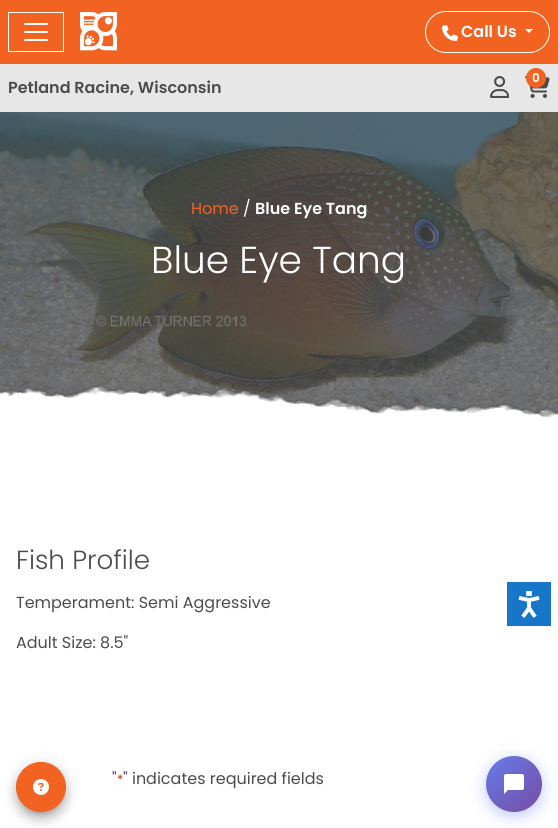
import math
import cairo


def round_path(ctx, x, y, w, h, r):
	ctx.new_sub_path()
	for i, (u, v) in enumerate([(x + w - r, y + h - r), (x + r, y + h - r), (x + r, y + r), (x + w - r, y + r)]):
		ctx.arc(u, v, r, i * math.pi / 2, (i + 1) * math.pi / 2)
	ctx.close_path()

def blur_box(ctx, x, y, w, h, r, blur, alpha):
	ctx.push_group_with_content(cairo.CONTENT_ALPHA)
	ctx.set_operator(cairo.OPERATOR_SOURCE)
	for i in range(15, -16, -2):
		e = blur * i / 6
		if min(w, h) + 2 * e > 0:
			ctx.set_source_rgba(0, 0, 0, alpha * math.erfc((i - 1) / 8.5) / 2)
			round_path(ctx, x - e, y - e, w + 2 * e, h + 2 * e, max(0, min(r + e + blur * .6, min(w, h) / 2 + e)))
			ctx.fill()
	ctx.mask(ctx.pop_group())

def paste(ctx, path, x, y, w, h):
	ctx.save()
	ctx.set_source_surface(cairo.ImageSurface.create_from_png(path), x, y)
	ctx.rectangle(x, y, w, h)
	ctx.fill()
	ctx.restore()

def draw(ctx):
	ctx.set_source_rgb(1, 1, 1)
	ctx.paint()
	ctx.set_source_rgb(0.906, 0.906, 0.906)
	ctx.rectangle(0, 64, 558, 48)
	ctx.fill()
	ctx.set_source_rgb(0.949, 0.388, 0.133)
	ctx.rectangle(0, 0, 558, 64)
	ctx.fill()
	ctx.rectangle(8.5, 12.5, 55, 39)
	ctx.set_source_rgb(1, 1, 1)
	ctx.set_line_width(1)
	ctx.stroke()
	paste(ctx, 'media/1.png', 24, 23, 24, 18)
	paste(ctx, 'media/2.png', 80, 12, 37, 39)
	round_path(ctx, 425.5, 11.5, 124, 41, 20.5)
	ctx.stroke()
	paste(ctx, 'media/3.png', 442, 25, 16, 16)
	ctx.select_font_face('Poppins SemiBold')
	ctx.set_font_size(16)
	ctx.move_to(461, 37)
	ctx.show_text('Call Us')
	ctx.new_path()
	ctx.move_to(525, 29)
	ctx.line_to(533, 29)
	ctx.line_to(529, 33)
	ctx.close_path()
	ctx.fill()
	paste(ctx, 'media/4.png', 490, 76, 19, 22)
	paste(ctx, 'media/5.png', 525, 76, 25, 22)
	ctx.set_source_rgb(0.949, 0.388, 0.133)
	ctx.arc(536, 78, 10, 0, 2 * math.pi)
	ctx.fill()
	ctx.set_font_size(12)
	ctx.set_source_rgb(1, 1, 1)
	ctx.move_to(532, 82)
	ctx.show_text('0')
	ctx.set_font_size(16)
	ctx.set_source_rgb(0.298, 0.298, 0.298)
	ctx.move_to(8, 93)
	ctx.show_text('Petland Racine, Wisconsin')
	paste(ctx, 'media/6.png', 0, 112, 558, 306)
	ctx.select_font_face('Poppins')
	ctx.set_source_rgb(0.949, 0.388, 0.133)
	ctx.move_to(191, 214)
	ctx.show_text('Home')
	ctx.set_source_rgb(1, 1, 1)
	ctx.move_to(243, 214)
	ctx.show_text('/')
	ctx.select_font_face('Poppins SemiBold')
	ctx.move_to(255, 214)
	ctx.show_text('Blue Eye Tang')
	ctx.select_font_face('Poppins Light')
	ctx.set_font_size(37.5)
	ctx.move_to(151, 273)
	ctx.show_text('Blue Eye Tang')
	paste(ctx, 'media/7.png', 0, 384, 558, 48)
	ctx.set_font_size(26.25)
	ctx.set_source_rgb(0.298, 0.298, 0.298)
	ctx.move_to(16, 569)
	ctx.show_text('Fish Profile')
	ctx.select_font_face('Poppins')
	ctx.set_font_size(16)
	for x, y, s in [
		(16, 608, 'Temperament: Semi Aggressive'),
		(16, 648, 'Adult Size: 8.5"'),
		(112, 784, '"'),
	]:
		ctx.move_to(x, y)
		ctx.show_text(s)
	ctx.set_font_size(13)
	ctx.set_source_rgb(0.753, 0.169, 0.039)
	ctx.move_to(117, 784)
	ctx.show_text('*')
	ctx.set_font_size(16)
	ctx.set_source_rgb(0.298, 0.298, 0.298)
	ctx.move_to(123, 784)
	ctx.show_text('" indicates required fields')
	ctx.set_source_rgb(0.094, 0.463, 0.788)
	ctx.rectangle(507, 582, 44, 44)
	ctx.fill()
	paste(ctx, 'media/8.png', 518, 591, 22, 27)
	ctx.set_source_rgb(0, 0, 0)
	blur_box(ctx, 14, 763, 54, 54, 27, 7, 0.12)
	blur_box(ctx, 15, 769, 52, 52, 26, 5, 0.14)
	blur_box(ctx, 19, 770, 44, 44, 22, 2.5, 0.2)
	ctx.set_source_rgb(0.949, 0.388, 0.133)
	ctx.arc(41, 787, 24.5, 0, 2 * math.pi)
	ctx.fill_preserve()
	ctx.stroke()
	paste(ctx, 'media/9.png', 33, 779, 16, 16)
	ctx.set_source_rgb(0.4, 0.494, 0.918)
	blur_box(ctx, 486, 760, 56, 56, 28, 7.5, 0.4)
	gradient = cairo.LinearGradient(486, 756, 542, 812)
	gradient.add_color_stop_rgba(0, 0.4, 0.494, 0.918, 1)
	gradient.add_color_stop_rgba(1, 0.463, 0.294, 0.635, 1)
	ctx.set_source(gradient)
	ctx.arc(514, 784, 28, 0, 2 * math.pi)
	ctx.fill()
	paste(ctx, 'media/10.png', 504, 774, 20, 20)


surface = cairo.ImageSurface(cairo.FORMAT_RGB24, 558, 828)
ctx = cairo.Context(surface)
options = cairo.FontOptions()
options.set_hint_metrics(cairo.HINT_METRICS_OFF)
options.set_hint_style(cairo.HINT_STYLE_NONE)
ctx.set_font_options(options)
ctx.set_miter_limit(4)
draw(ctx)
surface.write_to_png('image.png')
